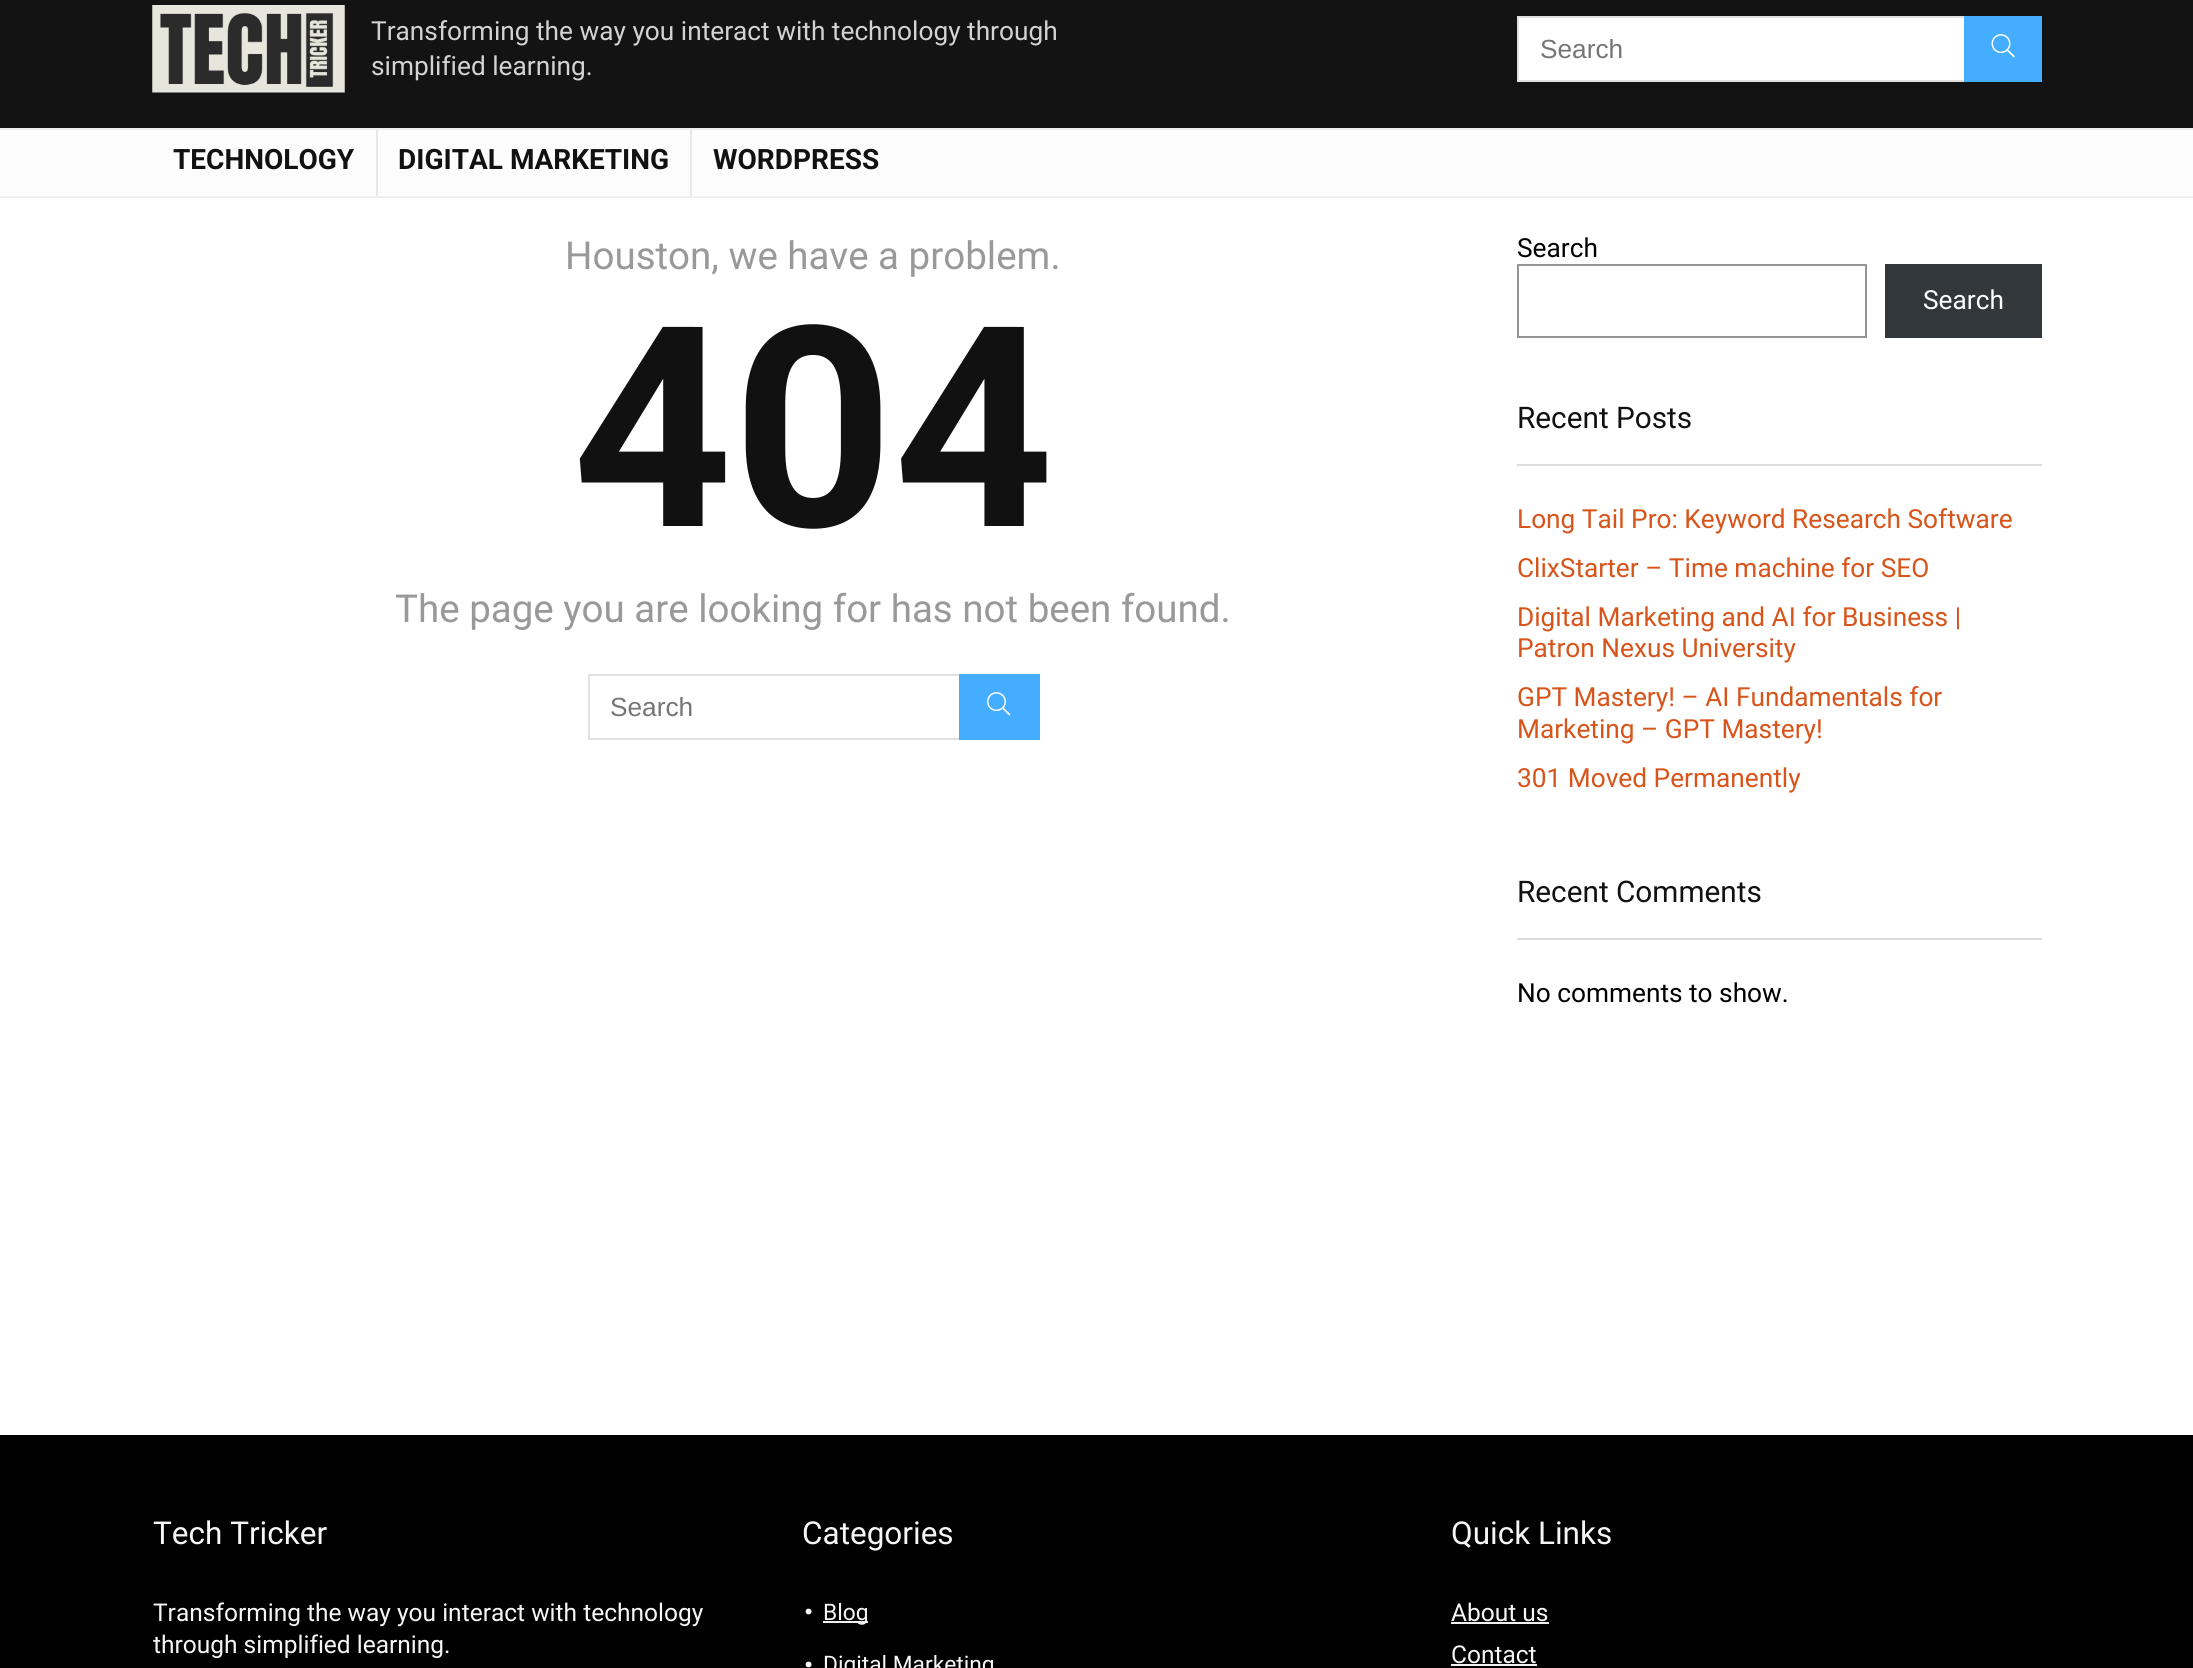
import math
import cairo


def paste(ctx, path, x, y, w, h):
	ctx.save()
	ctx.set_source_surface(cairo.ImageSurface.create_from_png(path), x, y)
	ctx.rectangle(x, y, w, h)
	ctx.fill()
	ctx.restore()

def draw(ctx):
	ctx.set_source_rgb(1, 1, 1)
	ctx.paint()
	ctx.set_source_rgb(0.078, 0.078, 0.078)
	ctx.rectangle(0, 0, 2193, 128)
	ctx.fill()
	paste(ctx, 'media/1.png', 152, 5, 193, 88)
	ctx.select_font_face('Roboto')
	ctx.set_font_size(26.25)
	ctx.set_source_rgb(0.827, 0.827, 0.827)
	ctx.move_to(371, 40)
	ctx.show_text('Transforming the way you interact with technology through')
	ctx.move_to(371, 75)
	ctx.show_text('simplified learning.')
	ctx.set_source_rgb(1, 1, 1)
	ctx.rectangle(1519, 18, 445, 62)
	ctx.fill()
	ctx.rectangle(1518, 17, 523, 64)
	ctx.set_source_rgb(0.882, 0.882, 0.882)
	ctx.stroke()
	ctx.select_font_face('Liberation Sans')
	ctx.set_source_rgb(0.459, 0.459, 0.459)
	ctx.move_to(1540, 58)
	ctx.show_text('Search')
	ctx.set_source_rgb(0.267, 0.678, 1)
	ctx.rectangle(1964, 16, 78, 66)
	ctx.fill()
	paste(ctx, 'media/2.png', 1991, 34, 24, 24)
	ctx.set_source_rgb(0.988, 0.988, 0.988)
	ctx.rectangle(0, 130, 2193, 66)
	ctx.fill()
	ctx.set_source_rgb(0.933, 0.933, 0.933)
	ctx.rectangle(0, 128, 2193, 2)
	ctx.rectangle(0, 196, 2193, 2)
	ctx.fill()
	ctx.set_source_rgb(0.91, 0.91, 0.91)
	ctx.rectangle(376, 130, 2, 66)
	ctx.fill()
	ctx.select_font_face('Roboto', cairo.FONT_SLANT_NORMAL, cairo.FONT_WEIGHT_BOLD)
	ctx.set_font_size(28)
	ctx.set_source_rgb(0.067, 0.067, 0.067)
	ctx.move_to(173, 169)
	ctx.show_text('TECHNOLOGY')
	ctx.set_source_rgb(0.91, 0.91, 0.91)
	ctx.rectangle(690, 130, 2, 66)
	ctx.fill()
	ctx.set_source_rgb(0.067, 0.067, 0.067)
	ctx.move_to(398, 169)
	ctx.show_text('DIGITAL MARKETING')
	ctx.move_to(713, 169)
	ctx.show_text('WORDPRESS')
	ctx.select_font_face('Roboto')
	ctx.set_font_size(38.5)
	ctx.set_source_rgb(0.6, 0.6, 0.6)
	ctx.move_to(565, 269)
	ctx.show_text('Houston, we have a problem.')
	ctx.select_font_face('Roboto', cairo.FONT_SLANT_NORMAL, cairo.FONT_WEIGHT_BOLD)
	ctx.set_font_size(280)
	ctx.set_source_rgb(0.067, 0.067, 0.067)
	ctx.move_to(572, 526)
	ctx.show_text('404')
	ctx.select_font_face('Roboto')
	ctx.set_font_size(38.5)
	ctx.set_source_rgb(0.6, 0.6, 0.6)
	ctx.move_to(395, 622)
	ctx.show_text('The page you are looking for has not been found.')
	ctx.rectangle(589, 675, 450, 64)
	ctx.set_source_rgb(0.882, 0.882, 0.882)
	ctx.stroke()
	ctx.select_font_face('Liberation Sans')
	ctx.set_font_size(26.25)
	ctx.set_source_rgb(0.459, 0.459, 0.459)
	ctx.move_to(610, 716)
	ctx.show_text('Search')
	ctx.set_source_rgb(0.267, 0.678, 1)
	ctx.rectangle(959, 674, 81, 66)
	ctx.fill()
	paste(ctx, 'media/3.png', 987, 692, 24, 24)
	ctx.select_font_face('Roboto')
	ctx.set_source_rgb(0, 0, 0)
	ctx.move_to(1517, 257)
	ctx.show_text('Search')
	ctx.rectangle(1518, 265, 348, 72)
	ctx.set_source_rgb(0.58, 0.58, 0.58)
	ctx.stroke()
	ctx.set_source_rgb(0.196, 0.216, 0.235)
	ctx.rectangle(1885, 264, 157, 74)
	ctx.fill()
	ctx.set_source_rgb(1, 1, 1)
	ctx.move_to(1923, 309)
	ctx.show_text('Search')
	ctx.set_source_rgb(0.867, 0.867, 0.867)
	ctx.rectangle(1517, 464, 525, 2)
	ctx.fill()
	ctx.set_font_size(29.75)
	ctx.set_source_rgb(0.067, 0.067, 0.067)
	ctx.move_to(1517, 428)
	ctx.show_text('Recent Posts')
	ctx.set_font_size(26.25)
	ctx.set_source_rgb(0.843, 0.329, 0.102)
	for x, y, s in [
		(1517, 528, 'Long Tail Pro: Keyword Research Software'),
		(1517, 577, 'ClixStarter – Time machine for SEO'),
		(1517, 626, 'Digital Marketing and AI for Business |'),
		(1517, 657, 'Patron Nexus University'),
		(1517, 706, 'GPT Mastery! – AI Fundamentals for'),
		(1517, 738, 'Marketing – GPT Mastery!'),
		(1517, 787, '301 Moved Permanently'),
	]:
		ctx.move_to(x, y)
		ctx.show_text(s)
	ctx.set_source_rgb(0.867, 0.867, 0.867)
	ctx.rectangle(1517, 938, 525, 2)
	ctx.fill()
	ctx.set_font_size(29.75)
	ctx.set_source_rgb(0.067, 0.067, 0.067)
	ctx.move_to(1517, 902)
	ctx.show_text('Recent Comments')
	ctx.set_font_size(26.25)
	ctx.set_source_rgb(0, 0, 0)
	ctx.move_to(1517, 1002)
	ctx.show_text('No comments to show.')
	ctx.rectangle(0, 1435, 2193, 233)
	ctx.fill()
	ctx.set_font_size(31.5)
	ctx.set_source_rgb(0.961, 0.961, 0.961)
	ctx.move_to(153, 1544)
	ctx.show_text('Tech Tricker')
	ctx.set_font_size(24.5)
	ctx.move_to(153, 1621)
	ctx.show_text('Transforming the way you interact with technology')
	ctx.move_to(153, 1653)
	ctx.show_text('through simplified learning.')
	ctx.set_font_size(31.5)
	ctx.move_to(802, 1544)
	ctx.show_text('Categories')
	ctx.set_font_size(52)
	ctx.set_source_rgb(1, 1, 1)
	ctx.move_to(802, 1614)
	ctx.show_text('.')
	ctx.set_source_rgb(0.945, 0.945, 0.945)
	ctx.rectangle(823, 1621, 45, 2)
	ctx.fill()
	ctx.set_font_size(22.75)
	ctx.set_source_rgb(0.961, 0.961, 0.961)
	ctx.move_to(823, 1620)
	ctx.show_text('Blog')
	ctx.set_font_size(52)
	ctx.set_source_rgb(1, 1, 1)
	ctx.move_to(802, 1667)
	ctx.show_text('.')
	ctx.set_font_size(22.75)
	ctx.set_source_rgb(0.961, 0.961, 0.961)
	ctx.move_to(823, 1672)
	ctx.show_text('Digital Marketing')
	ctx.set_font_size(31.5)
	ctx.move_to(1451, 1544)
	ctx.show_text('Quick Links')
	ctx.set_font_size(24.5)
	ctx.move_to(1451, 1621)
	ctx.show_text('About us')
	ctx.set_source_rgb(0.945, 0.945, 0.945)
	ctx.rectangle(1451, 1622, 98, 2)
	ctx.fill()
	ctx.set_source_rgb(0.961, 0.961, 0.961)
	ctx.move_to(1451, 1663)
	ctx.show_text('Contact')
	ctx.set_source_rgb(0.945, 0.945, 0.945)
	ctx.rectangle(1451, 1664, 86, 2)
	ctx.fill()


surface = cairo.ImageSurface(cairo.FORMAT_RGB24, 2193, 1668)
ctx = cairo.Context(surface)
options = cairo.FontOptions()
options.set_hint_metrics(cairo.HINT_METRICS_OFF)
options.set_hint_style(cairo.HINT_STYLE_NONE)
ctx.set_font_options(options)
ctx.set_miter_limit(4)
draw(ctx)
surface.write_to_png('image.png')
